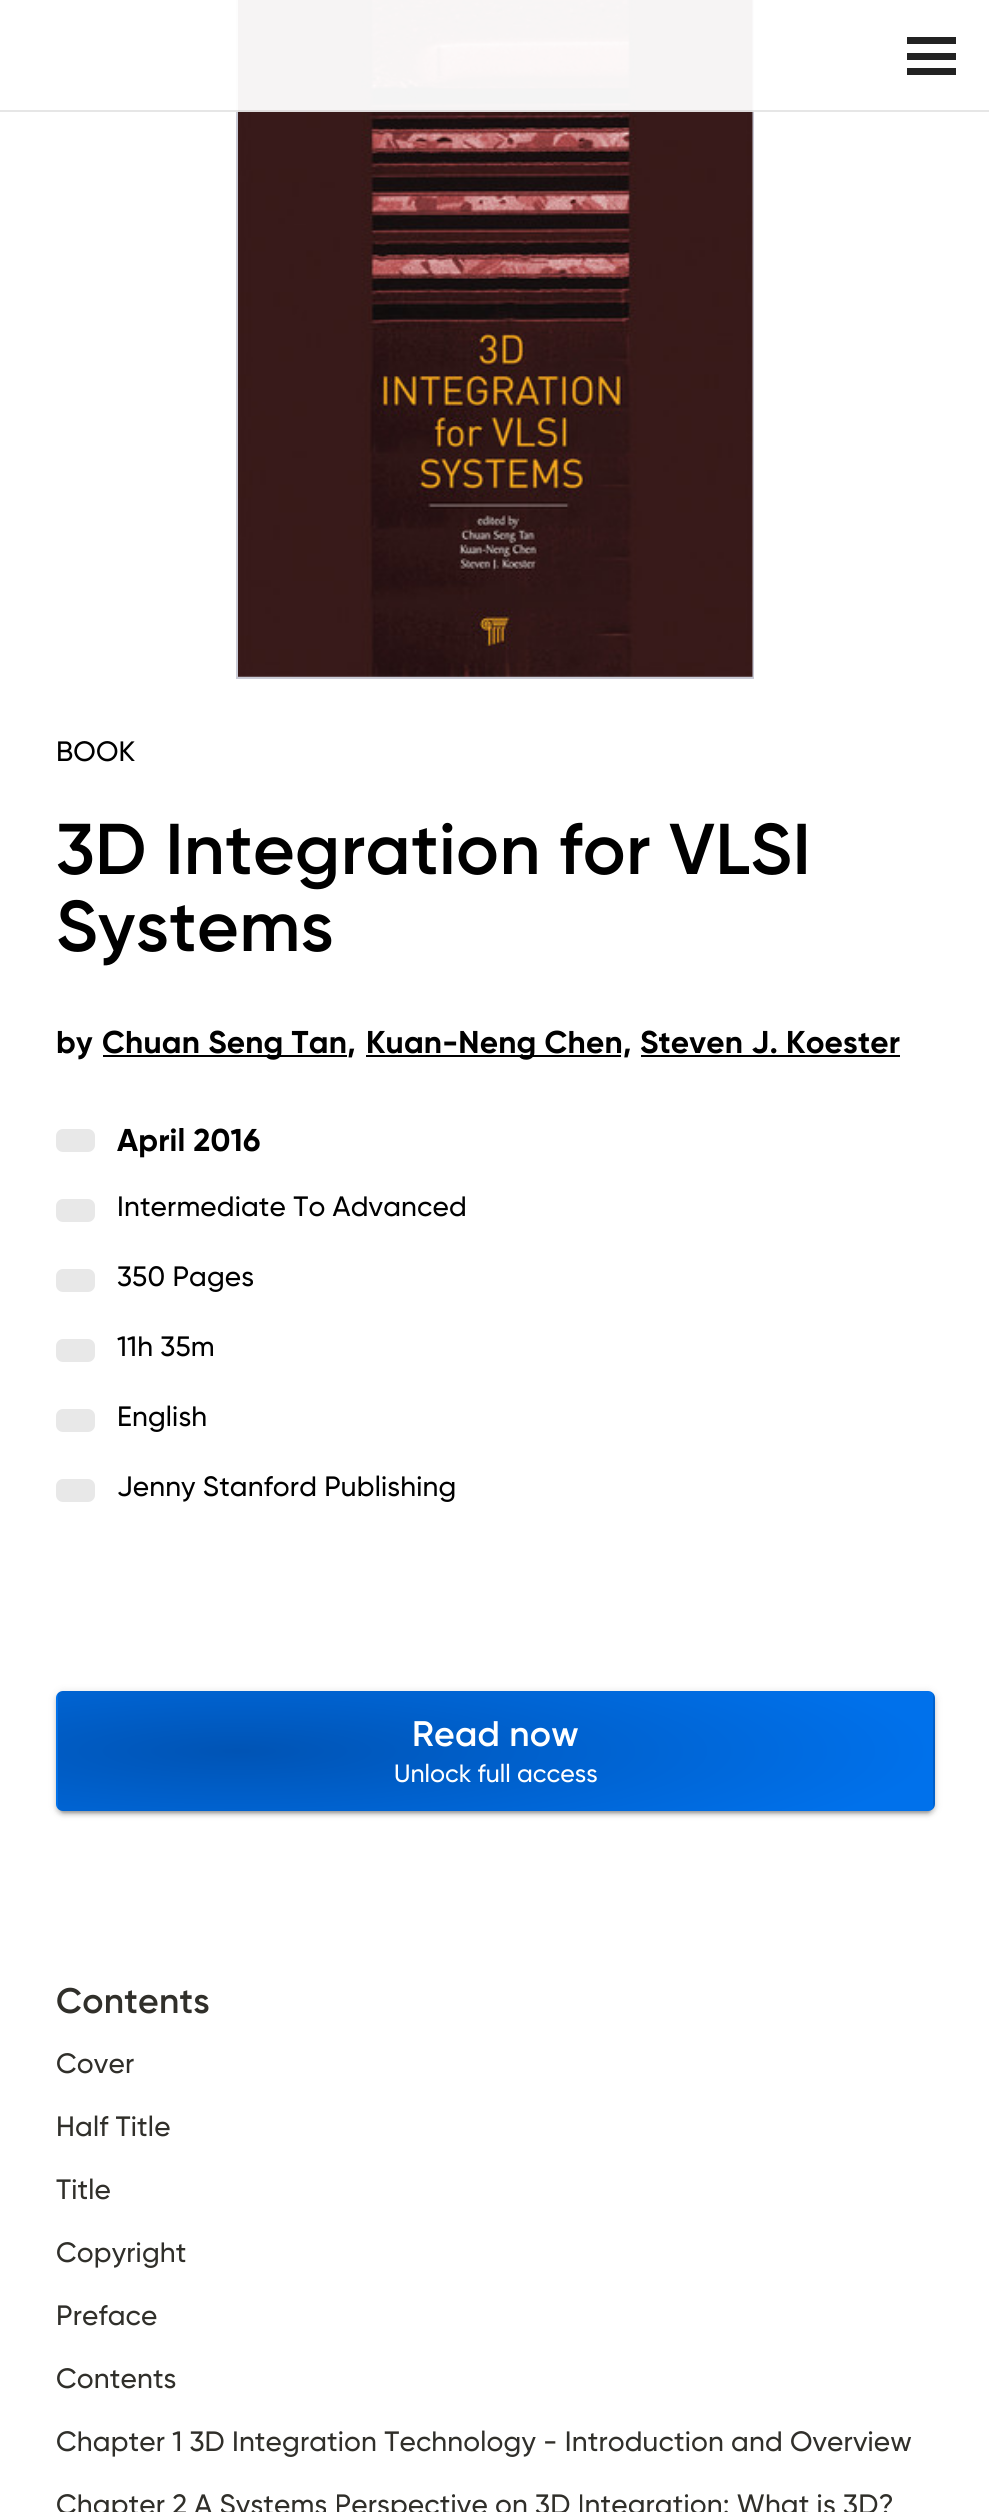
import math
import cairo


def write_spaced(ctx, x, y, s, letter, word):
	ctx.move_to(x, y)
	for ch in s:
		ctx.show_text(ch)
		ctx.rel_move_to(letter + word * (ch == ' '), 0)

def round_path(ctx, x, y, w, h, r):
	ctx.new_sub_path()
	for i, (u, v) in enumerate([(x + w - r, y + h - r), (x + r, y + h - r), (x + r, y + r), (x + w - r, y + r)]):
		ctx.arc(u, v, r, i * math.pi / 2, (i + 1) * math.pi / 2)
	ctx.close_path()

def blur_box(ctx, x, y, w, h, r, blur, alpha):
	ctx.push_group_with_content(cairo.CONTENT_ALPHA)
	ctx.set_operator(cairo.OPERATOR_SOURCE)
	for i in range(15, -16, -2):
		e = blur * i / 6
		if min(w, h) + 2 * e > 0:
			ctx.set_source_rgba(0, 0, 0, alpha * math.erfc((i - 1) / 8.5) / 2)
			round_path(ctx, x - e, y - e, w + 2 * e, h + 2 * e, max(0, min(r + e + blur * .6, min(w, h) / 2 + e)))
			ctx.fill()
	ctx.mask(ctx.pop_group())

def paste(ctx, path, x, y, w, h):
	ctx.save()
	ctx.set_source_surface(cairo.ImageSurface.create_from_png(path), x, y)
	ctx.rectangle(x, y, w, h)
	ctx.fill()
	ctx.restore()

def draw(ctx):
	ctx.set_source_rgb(1, 1, 1)
	ctx.paint()
	ctx.set_source_rgb(0.792, 0.796, 0.839)
	ctx.rectangle(236, 0, 518, 679)
	ctx.fill()
	paste(ctx, 'media/1.png', 238, 0, 515, 677)
	ctx.set_source_rgba(1, 1, 1, 0.95)
	ctx.rectangle(236, 0, 518, 112)
	ctx.fill()
	ctx.set_source_rgba(0, 0, 0, 0.1)
	ctx.rectangle(0, 110, 989, 2)
	ctx.fill()
	ctx.set_source_rgb(0.133, 0.133, 0.133)
	ctx.rectangle(907, 53, 49, 7)
	ctx.rectangle(907, 37, 49, 7)
	ctx.rectangle(907, 68, 49, 7)
	ctx.fill()
	ctx.select_font_face('Gilroy Medium')
	ctx.set_font_size(28)
	ctx.set_source_rgb(0, 0, 0)
	write_spaced(ctx, 56, 761, 'BOOK', 0.15, 0)
	ctx.select_font_face('Gilroy SemiBold')
	ctx.set_font_size(71.75)
	write_spaced(ctx, 56, 874, '3D Integration for VLSI', 0.4, 0)
	write_spaced(ctx, 56, 951, 'Systems', 0.4, 0)
	ctx.select_font_face('Gilroy', cairo.FONT_SLANT_NORMAL, cairo.FONT_WEIGHT_BOLD)
	ctx.set_font_size(31.5)
	write_spaced(ctx, 56, 1053, 'by', 0.2, 0)
	ctx.rectangle(103, 1055, 244, 2)
	ctx.fill()
	write_spaced(ctx, 102, 1053, 'Chuan Seng Tan,', 0.2, 0)
	ctx.rectangle(366, 1055, 255, 2)
	ctx.fill()
	write_spaced(ctx, 366, 1053, 'Kuan-Neng Chen,', 0.2, 0)
	write_spaced(ctx, 640, 1053, 'Steven J. Koester', 0.2, 0)
	ctx.rectangle(641, 1055, 259, 2)
	ctx.fill()
	ctx.set_source_rgb(0.91, 0.91, 0.91)
	round_path(ctx, 56, 1129, 39, 23, 7)
	ctx.fill()
	ctx.set_source_rgb(0, 0, 0)
	write_spaced(ctx, 117, 1151, 'April 2016', 0.2, 0)
	ctx.set_source_rgb(0.91, 0.91, 0.91)
	round_path(ctx, 56, 1199, 39, 23, 7)
	ctx.fill()
	ctx.select_font_face('Gilroy Medium')
	ctx.set_font_size(28)
	ctx.set_source_rgb(0, 0, 0)
	write_spaced(ctx, 117, 1216, 'Intermediate To Advanced', 0.15, 0)
	ctx.set_source_rgb(0.91, 0.91, 0.91)
	round_path(ctx, 56, 1269, 39, 23, 7)
	ctx.fill()
	ctx.set_source_rgb(0, 0, 0)
	write_spaced(ctx, 117, 1286, '350 Pages', 0.15, 0)
	ctx.set_source_rgb(0.91, 0.91, 0.91)
	round_path(ctx, 56, 1339, 39, 23, 7)
	ctx.fill()
	ctx.set_source_rgb(0, 0, 0)
	write_spaced(ctx, 117, 1356, '11h 35m', 0.15, 0)
	ctx.set_source_rgb(0.91, 0.91, 0.91)
	round_path(ctx, 56, 1409, 39, 23, 7)
	ctx.fill()
	ctx.set_source_rgb(0, 0, 0)
	write_spaced(ctx, 117, 1426, 'English', 0.15, 0)
	ctx.set_source_rgb(0.91, 0.91, 0.91)
	round_path(ctx, 56, 1479, 39, 23, 7)
	ctx.fill()
	ctx.set_source_rgb(0, 0, 0)
	write_spaced(ctx, 117, 1496, 'Jenny Stanford Publishing', 0.15, 0)
	ctx.set_source_rgb(0, 0, 0)
	blur_box(ctx, 56, 1692, 879, 121, 7, 4.5, 0.12)
	blur_box(ctx, 56, 1694, 879, 121, 7, 2, 0.14)
	blur_box(ctx, 60, 1699, 871, 114, 4, 1, 0.2)
	ctx.save()
	round_path(ctx, 56, 1691, 879, 120, 7)
	ctx.clip()
	gradient = cairo.RadialGradient(0, 0, 0, 0, 0, 1)
	gradient.set_matrix(cairo.Matrix(1 / 695, 0, 0, 1 / 123, -1 * 238 / 695, -1 * 1634 / 123))
	gradient.add_color_stop_rgba(0, 0, 0.329, 0.71, 1)
	gradient.add_color_stop_rgba(1, 0, 0.443, 0.922, 1)
	ctx.set_source(gradient)
	ctx.rectangle(58, 1691, 875, 1)
	ctx.fill()
	gradient = cairo.RadialGradient(0, 0, 0, 0, 0, 1)
	gradient.set_matrix(cairo.Matrix(1 / 695, 0, 0, 1 / 123, -1 * -637 / 695, -1 * 1751 / 123))
	gradient.add_color_stop_rgba(0, 0, 0.329, 0.71, 1)
	gradient.add_color_stop_rgba(1, 0, 0.443, 0.922, 1)
	ctx.set_source(gradient)
	ctx.rectangle(56, 1692, 2, 118)
	ctx.fill()
	gradient = cairo.RadialGradient(0, 0, 0, 0, 0, 1)
	gradient.set_matrix(cairo.Matrix(1 / 695, 0, 0, 1 / 123, -1 * 238 / 695, -1 * 1751 / 123))
	gradient.add_color_stop_rgba(0, 0, 0.329, 0.71, 1)
	gradient.add_color_stop_rgba(1, 0, 0.443, 0.922, 1)
	ctx.set_source(gradient)
	ctx.rectangle(58, 1692, 875, 118)
	ctx.fill()
	gradient = cairo.RadialGradient(0, 0, 0, 0, 0, 1)
	gradient.set_matrix(cairo.Matrix(1 / 695, 0, 0, 1 / 123, -1 * 1113 / 695, -1 * 1751 / 123))
	gradient.add_color_stop_rgba(0, 0, 0.329, 0.71, 1)
	gradient.add_color_stop_rgba(1, 0, 0.443, 0.922, 1)
	ctx.set_source(gradient)
	ctx.rectangle(933, 1692, 2, 118)
	ctx.fill()
	gradient = cairo.RadialGradient(0, 0, 0, 0, 0, 1)
	gradient.set_matrix(cairo.Matrix(1 / 695, 0, 0, 1 / 123, -1 * 238 / 695, -1 * 1868 / 123))
	gradient.add_color_stop_rgba(0, 0, 0.329, 0.71, 1)
	gradient.add_color_stop_rgba(1, 0, 0.443, 0.922, 1)
	ctx.set_source(gradient)
	ctx.rectangle(58, 1810, 875, 1)
	ctx.fill()
	ctx.restore()
	ctx.select_font_face('Gilroy SemiBold')
	ctx.set_font_size(35.5)
	ctx.set_source_rgb(1, 1, 1)
	write_spaced(ctx, 412, 1746, 'Read now', 0.25, 0)
	ctx.select_font_face('Gilroy Medium')
	ctx.set_font_size(25)
	ctx.move_to(394, 1782)
	ctx.show_text('Unlock full access')
	ctx.select_font_face('Gilroy SemiBold')
	ctx.set_font_size(35.5)
	ctx.set_source_rgb(0.188, 0.184, 0.165)
	write_spaced(ctx, 56, 2013, 'Contents', 0.25, 0)
	ctx.select_font_face('Gilroy Medium')
	ctx.set_font_size(28)
	for x, y, s in [
		(56, 2073, 'Cover'),
		(56, 2136, 'Half Title'),
		(56, 2199, 'Title'),
		(56, 2262, 'Copyright'),
		(56, 2325, 'Preface'),
		(56, 2388, 'Contents'),
		(56, 2451, 'Chapter 1 3D Integration Technology - Introduction and Overview'),
		(56, 2514, 'Chapter 2 A Systems Perspective on 3D Integration: What is 3D?'),
	]:
		write_spaced(ctx, x, y, s, 0.15, 0)


surface = cairo.ImageSurface(cairo.FORMAT_RGB24, 989, 2512)
ctx = cairo.Context(surface)
options = cairo.FontOptions()
options.set_hint_metrics(cairo.HINT_METRICS_OFF)
options.set_hint_style(cairo.HINT_STYLE_NONE)
ctx.set_font_options(options)
ctx.set_miter_limit(4)
draw(ctx)
surface.write_to_png('image.png')
